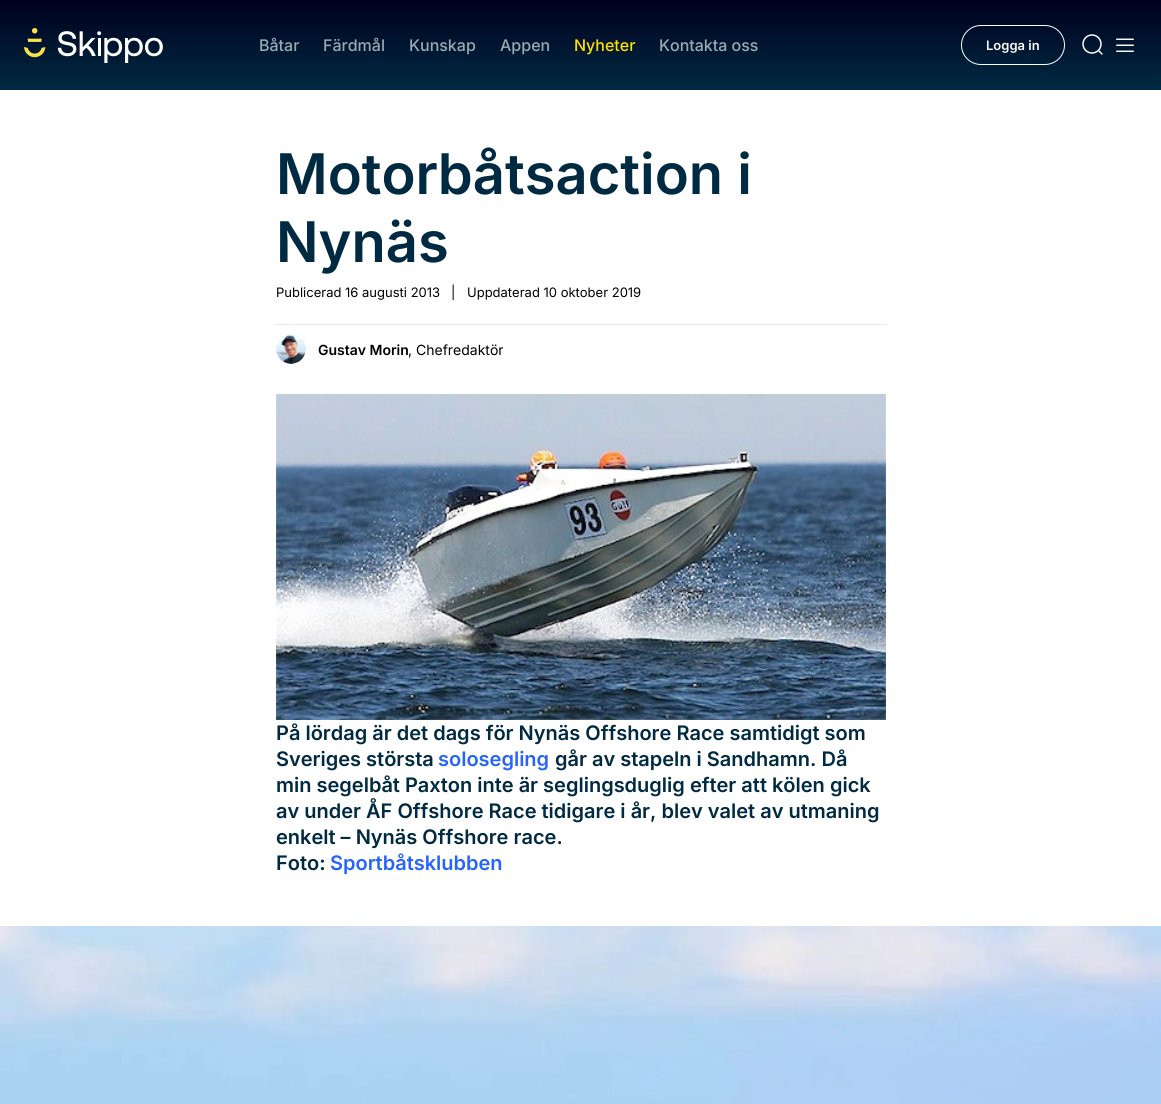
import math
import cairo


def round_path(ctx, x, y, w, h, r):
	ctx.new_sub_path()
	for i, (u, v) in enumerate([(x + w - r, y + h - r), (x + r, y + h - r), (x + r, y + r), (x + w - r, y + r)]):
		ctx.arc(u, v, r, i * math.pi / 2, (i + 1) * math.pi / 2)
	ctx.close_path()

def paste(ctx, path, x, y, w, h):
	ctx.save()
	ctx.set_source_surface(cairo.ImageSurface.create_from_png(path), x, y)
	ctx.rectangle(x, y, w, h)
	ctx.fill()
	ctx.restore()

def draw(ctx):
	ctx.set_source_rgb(1, 1, 1)
	ctx.paint()
	gradient = cairo.LinearGradient(581, 90, 581, 0)
	gradient.add_color_stop_rgba(0, 0, 0.165, 0.259, 1)
	gradient.add_color_stop_rgba(1, 0, 0, 0.118, 1)
	ctx.set_source(gradient)
	ctx.rectangle(0, 0, 1161, 90)
	ctx.fill()
	paste(ctx, 'media/1.png', 24, 28, 139, 35)
	ctx.select_font_face('Inter Medium')
	ctx.set_font_size(16)
	ctx.set_source_rgb(0.6, 0.667, 0.702)
	for x, y, s in [
		(259, 51, 'Båtar'),
		(323, 51, 'Färdmål'),
		(409, 51, 'Kunskap'),
		(500, 51, 'Appen'),
	]:
		ctx.move_to(x, y)
		ctx.show_text(s)
	ctx.set_source_rgb(1, 0.878, 0)
	ctx.move_to(574, 51)
	ctx.show_text('Nyheter')
	ctx.set_source_rgb(0.6, 0.667, 0.702)
	ctx.move_to(659, 51)
	ctx.show_text('Kontakta oss')
	round_path(ctx, 961.5, 25.5, 103, 39, 19.5)
	ctx.set_source_rgb(0.98, 0.984, 0.984)
	ctx.set_line_width(1)
	ctx.stroke()
	ctx.select_font_face('Inter SemiBold')
	ctx.set_font_size(13)
	ctx.move_to(986, 50)
	ctx.show_text('Logga in')
	paste(ctx, 'media/2.png', 1082, 34, 21, 21)
	paste(ctx, 'media/3.png', 1116, 38, 18, 14)
	ctx.set_font_size(56)
	ctx.set_source_rgb(0, 0.165, 0.259)
	ctx.move_to(276, 194)
	ctx.show_text('Motorbåtsaction i')
	ctx.move_to(276, 262)
	ctx.show_text('Nynäs')
	ctx.set_source_rgb(0.898, 0.914, 0.925)
	ctx.rectangle(276, 324, 610, 1)
	ctx.fill()
	ctx.select_font_face('Inter')
	ctx.set_font_size(13)
	ctx.set_source_rgb(0, 0, 0)
	for x, y, s in [
		(276, 297, 'Publicerad 16 augusti 2013'),
		(451, 297, '|'),
		(467, 297, 'Uppdaterad 10 oktober 2019'),
	]:
		ctx.move_to(x, y)
		ctx.show_text(s)
	paste(ctx, 'media/4.png', 276, 334, 30, 30)
	ctx.select_font_face('Inter SemiBold')
	ctx.set_font_size(14)
	ctx.move_to(318, 355)
	ctx.show_text('Gustav Morin')
	ctx.select_font_face('Inter')
	ctx.move_to(408, 355)
	ctx.show_text(', Chefredaktör')
	paste(ctx, 'media/5.png', 276, 394, 610, 326)
	ctx.select_font_face('Inter SemiBold')
	ctx.set_font_size(20)
	ctx.set_source_rgb(0, 0.165, 0.259)
	ctx.move_to(276, 740)
	ctx.show_text('På lördag är det dags för Nynäs Offshore Race samtidigt som')
	ctx.move_to(276, 766)
	ctx.show_text('Sveriges största')
	ctx.set_source_rgb(0.153, 0.392, 1)
	ctx.move_to(438, 766)
	ctx.show_text('solosegling')
	ctx.set_source_rgb(0, 0.165, 0.259)
	for x, y, s in [
		(555, 766, 'går av stapeln i Sandhamn. Då'),
		(276, 792, 'min segelbåt Paxton inte är seglingsduglig efter att kölen gick'),
		(276, 818, 'av under ÅF Offshore Race tidigare i år, blev valet av utmaning'),
		(276, 844, 'enkelt – Nynäs Offshore race.'),
		(276, 870, 'Foto:'),
	]:
		ctx.move_to(x, y)
		ctx.show_text(s)
	ctx.set_source_rgb(0.153, 0.392, 1)
	ctx.move_to(330, 870)
	ctx.show_text('Sportbåtsklubben')
	paste(ctx, 'media/6.png', 0, 926, 1161, 178)


surface = cairo.ImageSurface(cairo.FORMAT_RGB24, 1161, 1104)
ctx = cairo.Context(surface)
options = cairo.FontOptions()
options.set_hint_metrics(cairo.HINT_METRICS_OFF)
options.set_hint_style(cairo.HINT_STYLE_NONE)
ctx.set_font_options(options)
ctx.set_miter_limit(4)
draw(ctx)
surface.write_to_png('image.png')
